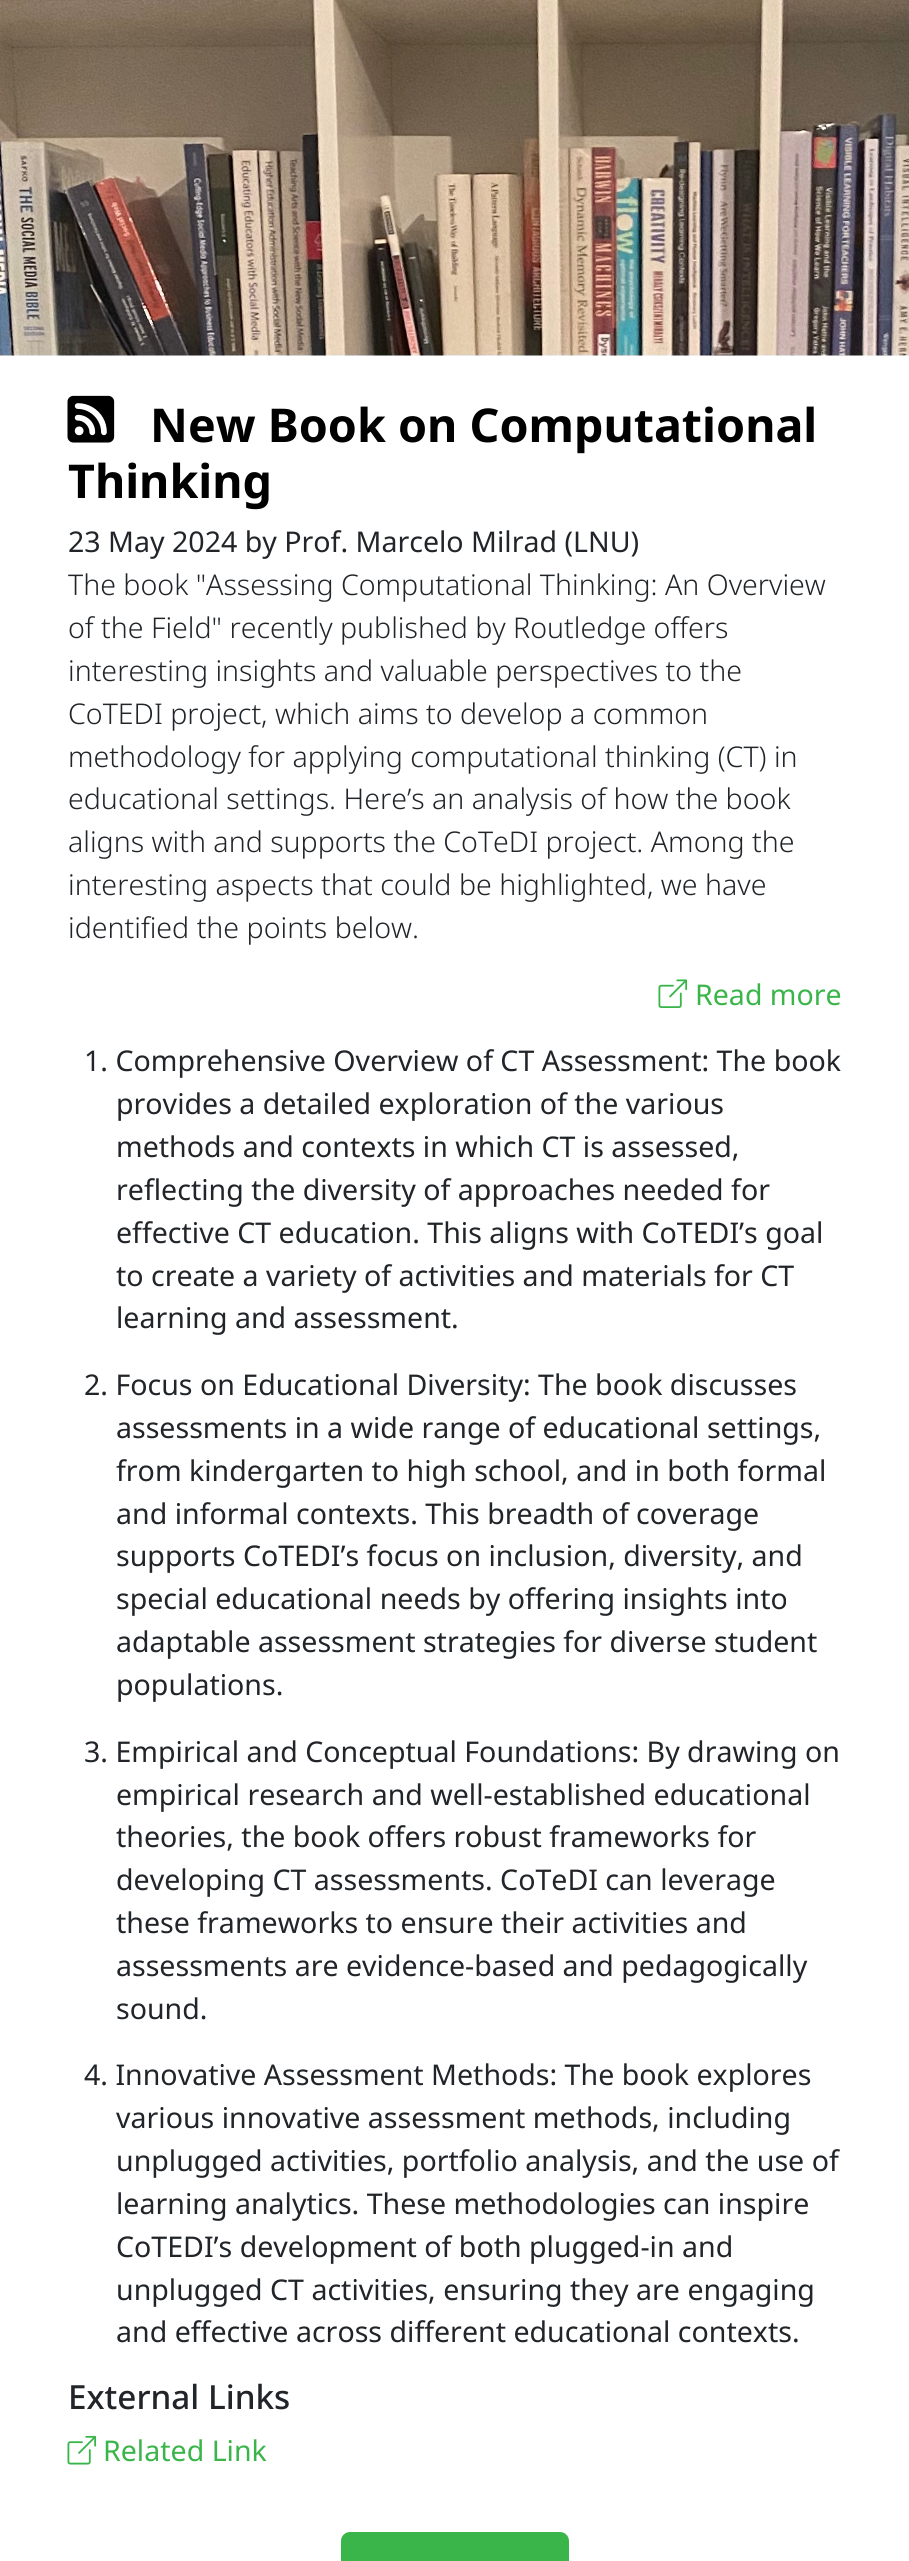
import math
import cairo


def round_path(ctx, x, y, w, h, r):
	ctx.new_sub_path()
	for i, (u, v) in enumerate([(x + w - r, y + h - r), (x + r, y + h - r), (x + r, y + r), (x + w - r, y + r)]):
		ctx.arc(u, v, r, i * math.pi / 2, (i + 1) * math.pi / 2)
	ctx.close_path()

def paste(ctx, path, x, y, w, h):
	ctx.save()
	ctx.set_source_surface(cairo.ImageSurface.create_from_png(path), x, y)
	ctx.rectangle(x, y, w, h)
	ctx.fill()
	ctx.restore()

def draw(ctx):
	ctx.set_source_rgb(1, 1, 1)
	ctx.paint()
	paste(ctx, 'media/1.png', 0, 0, 909, 356)
	paste(ctx, 'media/2.png', 67, 395, 48, 48)
	ctx.select_font_face('Noto Sans', cairo.FONT_SLANT_NORMAL, cairo.FONT_WEIGHT_BOLD)
	ctx.set_font_size(46.6)
	ctx.set_source_rgb(0, 0, 0)
	ctx.move_to(150, 442)
	ctx.show_text('New Book on Computational')
	ctx.move_to(68, 498)
	ctx.show_text('Thinking')
	ctx.select_font_face('Noto Sans')
	ctx.set_font_size(28.55)
	ctx.set_source_rgb(0.129, 0.145, 0.161)
	ctx.move_to(68, 552)
	ctx.show_text('23 May 2024 by Prof. Marcelo Milrad (LNU)')
	ctx.select_font_face('Noto Sans Light')
	for x, y, s in [
		(68, 595, 'The book "Assessing Computational Thinking: An Overview'),
		(68, 638, 'of the Field" recently published by Routledge offers'),
		(68, 681, 'interesting insights and valuable perspectives to the'),
		(68, 724, 'CoTEDI project, which aims to develop a common'),
		(68, 767, 'methodology for applying computational thinking (CT) in'),
		(68, 809, 'educational settings. Here’s an analysis of how the book'),
		(68, 852, 'aligns with and supports the CoTeDI project. Among the'),
		(68, 895, 'interesting aspects that could be highlighted, we have'),
		(68, 938, 'identified the points below.'),
	]:
		ctx.move_to(x, y)
		ctx.show_text(s)
	paste(ctx, 'media/3.png', 658, 979, 30, 29)
	ctx.select_font_face('Noto Sans')
	ctx.set_source_rgb(0.224, 0.71, 0.29)
	ctx.move_to(695, 1005)
	ctx.show_text('Read more')
	ctx.set_source_rgb(0.129, 0.145, 0.161)
	for x, y, s in [
		(84, 1071, '1. Comprehensive Overview of CT Assessment: The book'),
		(116, 1114, 'provides a detailed exploration of the various'),
		(116, 1157, 'methods and contexts in which CT is assessed,'),
		(116, 1200, 'reflecting the diversity of approaches needed for'),
		(116, 1243, 'effective CT education. This aligns with CoTEDI’s goal'),
		(116, 1286, 'to create a variety of activities and materials for CT'),
		(116, 1328, 'learning and assessment.'),
		(84, 1395, '2. Focus on Educational Diversity: The book discusses'),
		(116, 1438, 'assessments in a wide range of educational settings,'),
		(116, 1481, 'from kindergarten to high school, and in both formal'),
		(116, 1524, 'and informal contexts. This breadth of coverage'),
		(116, 1566, 'supports CoTEDI’s focus on inclusion, diversity, and'),
		(116, 1609, 'special educational needs by offering insights into'),
		(116, 1652, 'adaptable assessment strategies for diverse student'),
		(116, 1695, 'populations.'),
		(84, 1762, '3. Empirical and Conceptual Foundations: By drawing on'),
		(116, 1805, 'empirical research and well-established educational'),
		(116, 1847, 'theories, the book offers robust frameworks for'),
		(116, 1890, 'developing CT assessments. CoTeDI can leverage'),
		(116, 1933, 'these frameworks to ensure their activities and'),
		(116, 1976, 'assessments are evidence-based and pedagogically'),
		(116, 2019, 'sound.'),
		(84, 2085, '4. Innovative Assessment Methods: The book explores'),
		(116, 2128, 'various innovative assessment methods, including'),
		(116, 2171, 'unplugged activities, portfolio analysis, and the use of'),
		(116, 2214, 'learning analytics. These methodologies can inspire'),
		(116, 2257, 'CoTEDI’s development of both plugged-in and'),
		(116, 2300, 'unplugged CT activities, ensuring they are engaging'),
		(116, 2342, 'and effective across different educational contexts.'),
	]:
		ctx.move_to(x, y)
		ctx.show_text(s)
	ctx.select_font_face('Noto Sans Medium')
	ctx.set_font_size(33.25)
	ctx.move_to(68, 2409)
	ctx.show_text('External Links')
	paste(ctx, 'media/4.png', 67, 2435, 30, 30)
	ctx.select_font_face('Noto Sans')
	ctx.set_font_size(28.55)
	ctx.set_source_rgb(0.224, 0.71, 0.29)
	ctx.move_to(103, 2461)
	ctx.show_text('Related Link')
	round_path(ctx, 342, 2533, 226, 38, 8)
	ctx.fill_preserve()
	ctx.stroke()


surface = cairo.ImageSurface(cairo.FORMAT_RGB24, 909, 2561)
ctx = cairo.Context(surface)
options = cairo.FontOptions()
options.set_hint_metrics(cairo.HINT_METRICS_OFF)
options.set_hint_style(cairo.HINT_STYLE_NONE)
ctx.set_font_options(options)
ctx.set_miter_limit(4)
draw(ctx)
surface.write_to_png('image.png')
